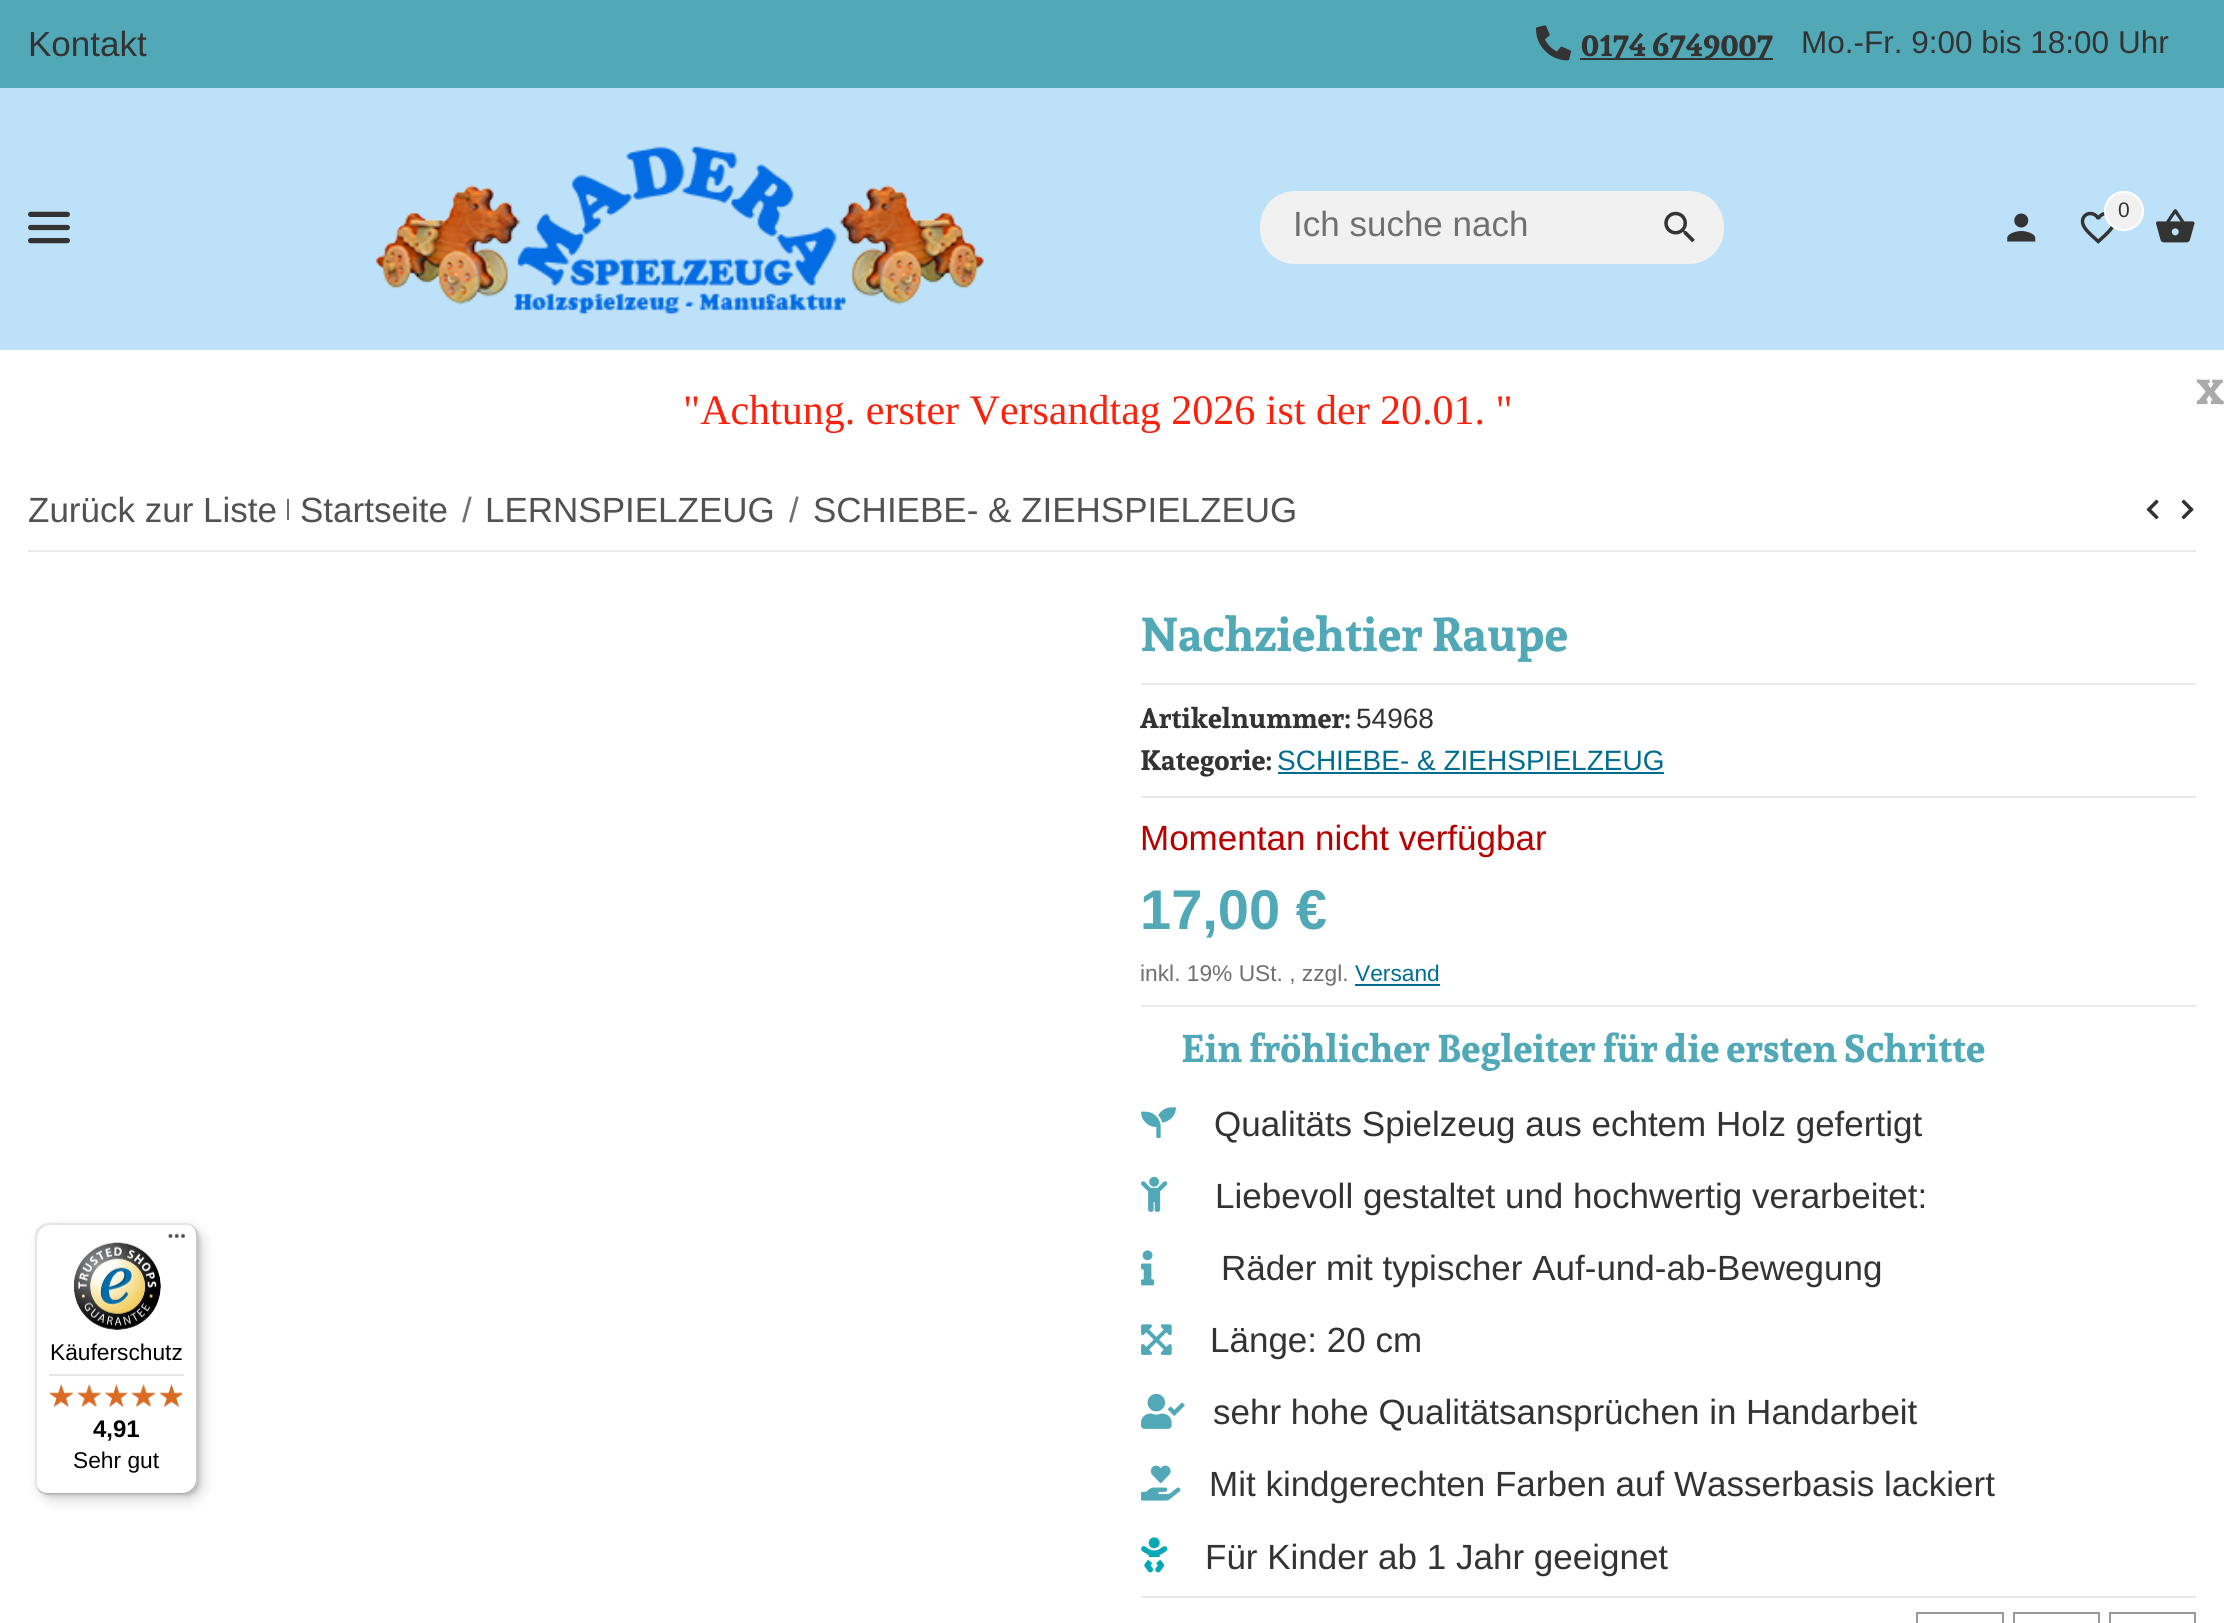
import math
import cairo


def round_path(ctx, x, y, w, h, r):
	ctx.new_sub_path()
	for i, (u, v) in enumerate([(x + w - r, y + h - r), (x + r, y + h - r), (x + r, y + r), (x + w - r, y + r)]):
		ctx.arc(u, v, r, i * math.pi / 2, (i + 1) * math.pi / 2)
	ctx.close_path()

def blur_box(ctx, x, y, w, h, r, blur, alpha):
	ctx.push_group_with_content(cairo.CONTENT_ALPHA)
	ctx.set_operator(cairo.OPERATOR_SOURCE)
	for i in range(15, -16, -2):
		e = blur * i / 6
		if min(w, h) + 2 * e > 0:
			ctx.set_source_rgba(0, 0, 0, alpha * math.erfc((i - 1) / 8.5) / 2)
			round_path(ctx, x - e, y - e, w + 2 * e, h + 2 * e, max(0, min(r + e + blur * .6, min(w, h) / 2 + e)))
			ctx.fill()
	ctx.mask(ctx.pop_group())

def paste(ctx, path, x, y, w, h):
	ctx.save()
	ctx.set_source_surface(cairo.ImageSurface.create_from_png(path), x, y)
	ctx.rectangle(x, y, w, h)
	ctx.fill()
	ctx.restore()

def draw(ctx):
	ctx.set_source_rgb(1, 1, 1)
	ctx.paint()
	ctx.set_source_rgb(0.318, 0.663, 0.718)
	ctx.rectangle(0, 0, 2224, 88)
	ctx.fill()
	ctx.select_font_face('Liberation Sans')
	ctx.set_font_size(35)
	ctx.set_source_rgb(0.2, 0.2, 0.2)
	ctx.move_to(28, 56)
	ctx.show_text('Kontakt')
	paste(ctx, 'media/1.png', 1536, 25, 35, 36)
	ctx.rectangle(1580, 58, 193, 2)
	ctx.fill()
	ctx.select_font_face('Sura', cairo.FONT_SLANT_NORMAL, cairo.FONT_WEIGHT_BOLD)
	ctx.set_font_size(31.5)
	ctx.move_to(1581, 56)
	ctx.show_text('0174 6749007')
	ctx.select_font_face('Liberation Sans')
	ctx.move_to(1801, 53)
	ctx.show_text('Mo.-Fr. 9:00 bis 18:00 Uhr')
	ctx.set_source_rgb(0.741, 0.882, 0.969)
	ctx.rectangle(0, 88, 2224, 262)
	ctx.fill()
	paste(ctx, 'media/2.png', 28, 211, 42, 33)
	paste(ctx, 'media/3.png', 375, 146, 609, 168)
	ctx.set_source_rgb(0.945, 0.945, 0.945)
	round_path(ctx, 1260, 191, 464, 73, 35)
	ctx.fill()
	ctx.set_font_size(35)
	ctx.set_source_rgb(0.439, 0.439, 0.439)
	ctx.move_to(1293, 236)
	ctx.show_text('Ich suche nach')
	paste(ctx, 'media/4.png', 1664, 211, 31, 32)
	paste(ctx, 'media/5.png', 2007, 213, 29, 29)
	paste(ctx, 'media/6.png', 2080, 211, 34, 33)
	ctx.set_source_rgb(0.945, 0.945, 0.945)
	ctx.arc(2124, 211, 19, 0, 2 * math.pi)
	ctx.fill_preserve()
	ctx.set_source_rgb(1, 1, 1)
	ctx.stroke()
	ctx.set_font_size(21)
	ctx.set_source_rgb(0.2, 0.2, 0.2)
	ctx.move_to(2118, 217)
	ctx.show_text('0')
	paste(ctx, 'media/7.png', 2156, 209, 39, 34)
	ctx.select_font_face('Liberation Serif')
	ctx.set_font_size(42)
	ctx.set_source_rgb(0.98, 0.129, 0.051)
	ctx.move_to(683, 424)
	ctx.show_text('"Achtung. erster Versandtag 2026 ist der 20.01. "')
	ctx.select_font_face('Sura', cairo.FONT_SLANT_NORMAL, cairo.FONT_WEIGHT_BOLD)
	ctx.set_font_size(49)
	ctx.set_source_rgb(0.667, 0.667, 0.667)
	ctx.move_to(2196, 404)
	ctx.show_text('x')
	ctx.select_font_face('Liberation Sans')
	ctx.set_font_size(35)
	ctx.set_source_rgb(0.322, 0.322, 0.322)
	ctx.move_to(28, 522)
	ctx.show_text('Zurück zur Liste')
	ctx.set_source_rgb(0.439, 0.439, 0.439)
	ctx.rectangle(287, 499, 2, 21)
	ctx.fill()
	ctx.set_source_rgb(0.322, 0.322, 0.322)
	ctx.move_to(300, 522)
	ctx.show_text('Startseite')
	ctx.set_source_rgb(0.439, 0.439, 0.439)
	ctx.move_to(462, 522)
	ctx.show_text('/')
	ctx.set_source_rgb(0.322, 0.322, 0.322)
	ctx.move_to(485, 522)
	ctx.show_text('LERNSPIELZEUG')
	ctx.set_source_rgb(0.439, 0.439, 0.439)
	ctx.move_to(789, 522)
	ctx.show_text('/')
	ctx.set_source_rgb(0.322, 0.322, 0.322)
	ctx.move_to(813, 522)
	ctx.show_text('SCHIEBE- & ZIEHSPIELZEUG')
	paste(ctx, 'media/8.png', 2146, 499, 13, 21)
	paste(ctx, 'media/9.png', 2181, 499, 13, 21)
	ctx.set_source_rgb(0.914, 0.914, 0.914)
	ctx.rectangle(28, 550, 2168, 2)
	ctx.fill()
	ctx.rectangle(1141, 683, 1055, 2)
	ctx.fill()
	ctx.select_font_face('Sura', cairo.FONT_SLANT_NORMAL, cairo.FONT_WEIGHT_BOLD)
	ctx.set_font_size(47.25)
	ctx.set_source_rgb(0.318, 0.663, 0.718)
	ctx.move_to(1140, 651)
	ctx.show_text('Nachziehtier Raupe')
	ctx.set_source_rgb(0.914, 0.914, 0.914)
	ctx.rectangle(1141, 796, 1055, 2)
	ctx.fill()
	ctx.set_font_size(28)
	ctx.set_source_rgb(0.2, 0.2, 0.2)
	ctx.move_to(1140, 728)
	ctx.show_text('Artikelnummer:')
	ctx.select_font_face('Liberation Sans')
	ctx.move_to(1356, 728)
	ctx.show_text('54968')
	ctx.select_font_face('Sura', cairo.FONT_SLANT_NORMAL, cairo.FONT_WEIGHT_BOLD)
	ctx.move_to(1140, 770)
	ctx.show_text('Kategorie:')
	ctx.select_font_face('Liberation Sans')
	ctx.set_source_rgb(0, 0.427, 0.565)
	ctx.move_to(1277, 770)
	ctx.show_text('SCHIEBE- & ZIEHSPIELZEUG')
	ctx.rectangle(1278, 772, 386, 2)
	ctx.fill()
	ctx.set_font_size(35)
	ctx.set_source_rgb(0.725, 0, 0)
	ctx.move_to(1140, 850)
	ctx.show_text('Momentan nicht verfügbar')
	ctx.set_source_rgb(0.914, 0.914, 0.914)
	ctx.rectangle(1141, 1005, 1055, 2)
	ctx.fill()
	ctx.select_font_face('Liberation Sans', cairo.FONT_SLANT_NORMAL, cairo.FONT_WEIGHT_BOLD)
	ctx.set_font_size(56)
	ctx.set_source_rgb(0.318, 0.663, 0.718)
	ctx.move_to(1140, 929)
	ctx.show_text('17,00 €')
	ctx.select_font_face('Liberation Sans')
	ctx.set_font_size(22.75)
	ctx.set_source_rgb(0.439, 0.439, 0.439)
	ctx.move_to(1140, 981)
	ctx.show_text('inkl. 19% USt. , zzgl.')
	ctx.set_source_rgb(0, 0.427, 0.565)
	ctx.move_to(1355, 981)
	ctx.show_text('Versand')
	ctx.rectangle(1355, 984, 85, 2)
	ctx.fill()
	ctx.set_source_rgb(0.914, 0.914, 0.914)
	ctx.rectangle(1141, 1596, 1055, 2)
	ctx.fill()
	ctx.select_font_face('Sura', cairo.FONT_SLANT_NORMAL, cairo.FONT_WEIGHT_BOLD)
	ctx.set_font_size(38.5)
	ctx.set_source_rgb(0.318, 0.663, 0.718)
	ctx.move_to(1181, 1062)
	ctx.show_text('Ein fröhlicher Begleiter für die ersten Schritte')
	paste(ctx, 'media/10.png', 1141, 1107, 35, 31)
	ctx.select_font_face('Liberation Sans')
	ctx.set_font_size(35)
	ctx.set_source_rgb(0.2, 0.2, 0.2)
	ctx.move_to(1214, 1136)
	ctx.show_text('Qualitäts Spielzeug aus echtem Holz gefertigt')
	paste(ctx, 'media/11.png', 1141, 1176, 27, 36)
	ctx.move_to(1215, 1208)
	ctx.show_text('Liebevoll gestaltet und hochwertig verarbeitet:')
	paste(ctx, 'media/12.png', 1141, 1250, 14, 36)
	ctx.move_to(1221, 1280)
	ctx.show_text('Räder mit typischer Auf-und-ab-Bewegung')
	paste(ctx, 'media/13.png', 1141, 1324, 31, 31)
	ctx.move_to(1210, 1352)
	ctx.show_text('Länge: 20 cm')
	paste(ctx, 'media/14.png', 1141, 1393, 44, 36)
	ctx.move_to(1213, 1424)
	ctx.show_text('sehr hohe Qualitätsansprüchen in Handarbeit')
	paste(ctx, 'media/15.png', 1141, 1465, 40, 36)
	ctx.move_to(1209, 1496)
	ctx.show_text('Mit kindgerechten Farben auf Wasserbasis lackiert')
	paste(ctx, 'media/16.png', 1141, 1537, 27, 36)
	ctx.move_to(1205, 1569)
	ctx.show_text('Für Kinder ab 1 Jahr geeignet')
	ctx.rectangle(1917, 1613, 86, 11)
	ctx.set_source_rgb(0.6, 0.6, 0.6)
	ctx.stroke()
	ctx.rectangle(2014, 1613, 85, 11)
	ctx.stroke()
	ctx.rectangle(2110, 1613, 85, 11)
	ctx.stroke()
	ctx.set_source_rgb(0, 0, 0)
	blur_box(ctx, 40, 1229, 163, 271, 14, 7, 0.15)
	blur_box(ctx, 37, 1225, 163, 271, 14, 2, 0.15)
	ctx.set_source_rgb(1, 1, 1)
	round_path(ctx, 35, 1223, 163, 272, 14)
	ctx.fill()
	ctx.set_source_rgba(0, 0, 0, 0.1)
	ctx.new_path()
	ctx.move_to(51, 1225)
	ctx.line_to(186, 1225)
	ctx.curve_to(189, 1225, 193, 1226, 195, 1229)
	ctx.curve_to(193, 1225, 189, 1223, 184, 1223)
	ctx.line_to(49, 1223)
	ctx.curve_to(41, 1223, 35, 1229, 35, 1237)
	ctx.line_to(35, 1481)
	ctx.curve_to(35, 1487, 38, 1491, 43, 1494)
	ctx.curve_to(39, 1491, 37, 1487, 37, 1482)
	ctx.line_to(37, 1239)
	ctx.curve_to(37, 1231, 43, 1225, 51, 1225)
	ctx.close_path()
	ctx.fill()
	ctx.set_source_rgba(0, 0, 0, 0.2)
	ctx.new_path()
	ctx.move_to(37, 1488)
	ctx.curve_to(39, 1492, 44, 1495, 49, 1495)
	ctx.line_to(184, 1495)
	ctx.curve_to(192, 1495, 198, 1489, 198, 1481)
	ctx.line_to(198, 1237)
	ctx.curve_to(198, 1231, 195, 1227, 190, 1224)
	ctx.curve_to(194, 1227, 196, 1231, 196, 1236)
	ctx.line_to(196, 1479)
	ctx.curve_to(196, 1486, 190, 1493, 182, 1493)
	ctx.line_to(47, 1493)
	ctx.curve_to(43, 1493, 40, 1491, 37, 1488)
	ctx.close_path()
	ctx.fill()
	ctx.set_source_rgba(0.196, 0.196, 0.196, 0.2)
	ctx.new_path()
	ctx.move_to(36, 1487)
	ctx.curve_to(39, 1492, 43, 1495, 49, 1495)
	ctx.line_to(184, 1495)
	ctx.curve_to(192, 1495, 198, 1489, 198, 1481)
	ctx.line_to(198, 1237)
	ctx.curve_to(198, 1232, 196, 1228, 192, 1226)
	ctx.curve_to(195, 1228, 197, 1232, 197, 1236)
	ctx.line_to(197, 1479)
	ctx.curve_to(197, 1487, 190, 1493, 183, 1493)
	ctx.line_to(48, 1493)
	ctx.curve_to(43, 1493, 39, 1491, 36, 1487)
	ctx.close_path()
	ctx.fill()
	ctx.set_source_rgba(1, 1, 1, 0.3)
	ctx.new_path()
	ctx.move_to(38, 1489)
	ctx.curve_to(40, 1493, 44, 1495, 49, 1495)
	ctx.line_to(184, 1495)
	ctx.curve_to(192, 1495, 198, 1489, 198, 1481)
	ctx.line_to(198, 1237)
	ctx.curve_to(198, 1232, 196, 1228, 193, 1226)
	ctx.curve_to(195, 1229, 197, 1232, 197, 1236)
	ctx.line_to(197, 1480)
	ctx.curve_to(197, 1487, 191, 1494, 183, 1494)
	ctx.line_to(48, 1494)
	ctx.curve_to(44, 1494, 40, 1492, 38, 1489)
	ctx.close_path()
	ctx.fill()
	paste(ctx, 'media/17.png', 168, 1233, 17, 5)
	paste(ctx, 'media/18.png', 74, 1242, 87, 88)
	ctx.set_font_size(22.75)
	ctx.set_source_rgb(0, 0, 0)
	ctx.move_to(50, 1360)
	ctx.show_text('Käuferschutz')
	ctx.set_source_rgb(0.898, 0.898, 0.898)
	ctx.rectangle(49, 1374, 135, 2)
	ctx.fill()
	paste(ctx, 'media/19.png', 49, 1384, 24, 23)
	paste(ctx, 'media/20.png', 77, 1384, 24, 23)
	paste(ctx, 'media/21.png', 105, 1384, 23, 23)
	paste(ctx, 'media/22.png', 131, 1384, 25, 23)
	paste(ctx, 'media/23.png', 160, 1384, 23, 23)
	paste(ctx, 'media/24.png', 49, 1384, 24, 23)
	paste(ctx, 'media/25.png', 77, 1384, 25, 23)
	paste(ctx, 'media/26.png', 105, 1384, 23, 23)
	paste(ctx, 'media/27.png', 131, 1384, 25, 23)
	paste(ctx, 'media/28.png', 159, 1384, 23, 23)
	ctx.select_font_face('Liberation Sans', cairo.FONT_SLANT_NORMAL, cairo.FONT_WEIGHT_BOLD)
	ctx.set_font_size(24)
	ctx.set_source_rgb(0, 0, 0)
	ctx.move_to(93, 1437)
	ctx.show_text('4,91')
	ctx.select_font_face('Liberation Sans')
	ctx.set_font_size(22.75)
	ctx.move_to(73, 1468)
	ctx.show_text('Sehr gut')


surface = cairo.ImageSurface(cairo.FORMAT_RGB24, 2224, 1623)
ctx = cairo.Context(surface)
options = cairo.FontOptions()
options.set_hint_metrics(cairo.HINT_METRICS_OFF)
options.set_hint_style(cairo.HINT_STYLE_NONE)
ctx.set_font_options(options)
ctx.set_miter_limit(4)
draw(ctx)
surface.write_to_png('image.png')
